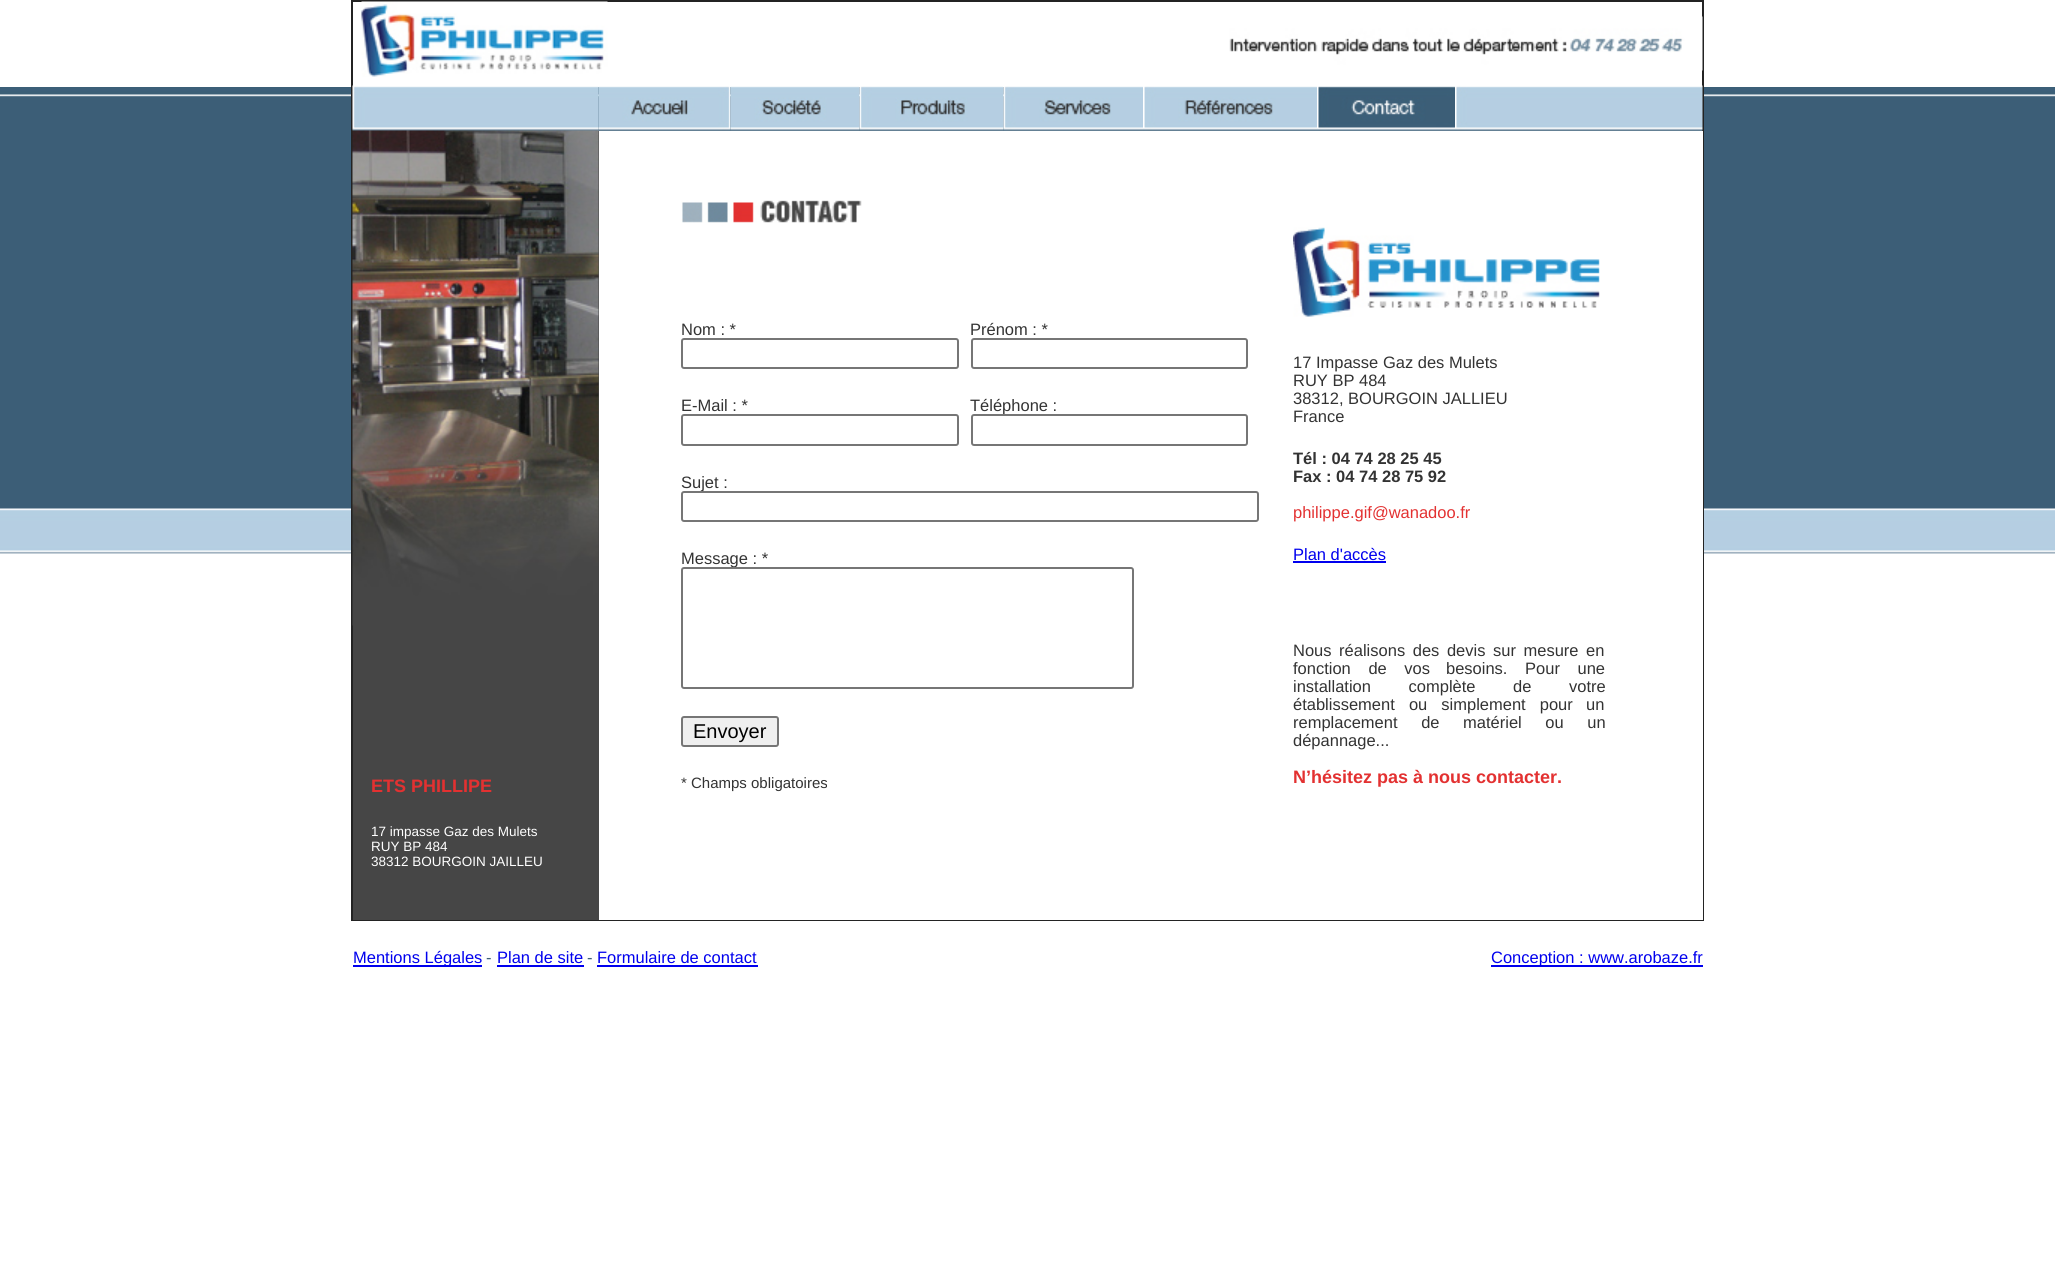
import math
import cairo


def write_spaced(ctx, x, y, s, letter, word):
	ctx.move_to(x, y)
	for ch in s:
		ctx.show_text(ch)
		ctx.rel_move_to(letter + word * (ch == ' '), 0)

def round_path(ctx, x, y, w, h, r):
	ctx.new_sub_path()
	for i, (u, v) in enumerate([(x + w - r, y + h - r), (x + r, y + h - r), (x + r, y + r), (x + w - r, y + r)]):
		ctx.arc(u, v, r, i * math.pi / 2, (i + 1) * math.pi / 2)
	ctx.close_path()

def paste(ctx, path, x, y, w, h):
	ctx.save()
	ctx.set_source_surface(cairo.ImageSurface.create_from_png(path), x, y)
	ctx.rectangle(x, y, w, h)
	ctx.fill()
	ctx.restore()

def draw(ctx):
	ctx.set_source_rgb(1, 1, 1)
	ctx.paint()
	paste(ctx, 'media/1.png', 0, 87, 2055, 467)
	ctx.rectangle(352, 1, 1351, 919)
	ctx.set_source_rgb(0.137, 0.137, 0.137)
	ctx.stroke()
	paste(ctx, 'media/2.png', 361, 1, 247, 76)
	paste(ctx, 'media/3.png', 1229, 16, 474, 55)
	paste(ctx, 'media/4.png', 352, 85, 247, 46)
	paste(ctx, 'media/5.png', 598, 86, 133, 45)
	paste(ctx, 'media/6.png', 730, 86, 130, 45)
	paste(ctx, 'media/7.png', 859, 86, 145, 45)
	paste(ctx, 'media/8.png', 1003, 86, 140, 45)
	paste(ctx, 'media/9.png', 1143, 86, 174, 45)
	paste(ctx, 'media/10.png', 1317, 86, 138, 45)
	paste(ctx, 'media/11.png', 1455, 85, 248, 46)
	ctx.set_source_rgb(1, 1, 1)
	ctx.rectangle(599, 131, 1104, 789)
	ctx.fill()
	ctx.select_font_face('Liberation Sans')
	ctx.set_font_size(16.5)
	ctx.set_source_rgb(0.2, 0.2, 0.2)
	ctx.move_to(681, 335)
	ctx.show_text('Nom : *')
	ctx.move_to(970, 335)
	ctx.show_text('Prénom : *')
	round_path(ctx, 682, 339, 276, 29, 2)
	ctx.set_source_rgb(0.463, 0.463, 0.463)
	ctx.stroke()
	round_path(ctx, 972, 339, 275, 29, 2)
	ctx.stroke()
	ctx.set_source_rgb(0.2, 0.2, 0.2)
	ctx.move_to(681, 411)
	ctx.show_text('E-Mail : *')
	ctx.move_to(970, 411)
	ctx.show_text('Téléphone :')
	round_path(ctx, 682, 415, 276, 30, 2)
	ctx.set_source_rgb(0.463, 0.463, 0.463)
	ctx.stroke()
	ctx.set_source_rgb(1, 1, 1)
	round_path(ctx, 972, 415, 275, 30, 2)
	ctx.fill_preserve()
	ctx.set_source_rgb(0.463, 0.463, 0.463)
	ctx.stroke()
	ctx.set_source_rgb(0.2, 0.2, 0.2)
	ctx.move_to(681, 488)
	ctx.show_text('Sujet :')
	ctx.set_source_rgb(1, 1, 1)
	round_path(ctx, 682, 492, 576, 29, 2)
	ctx.fill_preserve()
	ctx.set_source_rgb(0.463, 0.463, 0.463)
	ctx.stroke()
	ctx.set_source_rgb(0.2, 0.2, 0.2)
	ctx.move_to(681, 564)
	ctx.show_text('Message : *')
	ctx.set_source_rgb(1, 1, 1)
	round_path(ctx, 682, 568, 451, 120, 2)
	ctx.fill_preserve()
	ctx.set_source_rgb(0.463, 0.463, 0.463)
	ctx.stroke()
	ctx.set_source_rgb(0.937, 0.937, 0.937)
	round_path(ctx, 682, 717, 96, 29, 2)
	ctx.fill_preserve()
	ctx.set_source_rgb(0.463, 0.463, 0.463)
	ctx.stroke()
	ctx.set_font_size(20)
	ctx.set_source_rgb(0, 0, 0)
	ctx.move_to(693, 738)
	ctx.show_text('Envoyer')
	ctx.set_font_size(15)
	ctx.set_source_rgb(0.2, 0.2, 0.2)
	ctx.move_to(681, 788)
	ctx.show_text('* Champs obligatoires')
	paste(ctx, 'media/12.png', 681, 200, 181, 23)
	paste(ctx, 'media/13.png', 1293, 227, 307, 90)
	ctx.set_font_size(16.5)
	for x, y, s in [
		(1293, 368, '17 Impasse Gaz des Mulets'),
		(1293, 386, 'RUY BP 484'),
		(1293, 404, '38312, BOURGOIN JALLIEU'),
		(1293, 422, 'France'),
	]:
		ctx.move_to(x, y)
		ctx.show_text(s)
	ctx.select_font_face('Liberation Sans', cairo.FONT_SLANT_NORMAL, cairo.FONT_WEIGHT_BOLD)
	ctx.move_to(1293, 464)
	ctx.show_text('Tél : 04 74 28 25 45')
	ctx.move_to(1293, 482)
	ctx.show_text('Fax : 04 74 28 75 92')
	ctx.select_font_face('Liberation Sans')
	ctx.set_source_rgb(0.89, 0.192, 0.192)
	ctx.move_to(1293, 518)
	ctx.show_text('philippe.gif@wanadoo.fr')
	ctx.set_source_rgb(0, 0, 0.933)
	ctx.move_to(1293, 560)
	ctx.show_text('Plan d\'accès')
	ctx.rectangle(1293, 561, 93, 2)
	ctx.fill()
	ctx.set_source_rgb(0.2, 0.2, 0.2)
	write_spaced(ctx, 1293, 656, 'Nous réalisons des devis sur mesure en', 0, 3)
	write_spaced(ctx, 1293, 674, 'fonction de vos', 0, 13)
	write_spaced(ctx, 1446, 674, 'besoins. Pour une', 0, 13)
	write_spaced(ctx, 1293, 692, 'installation complète de votre', 0, 33)
	write_spaced(ctx, 1293, 710, 'établissement ou simplement pour', 0, 9.5)
	ctx.move_to(1586, 710)
	ctx.show_text('un')
	write_spaced(ctx, 1293, 728, 'remplacement de matériel ou un', 0, 19)
	ctx.move_to(1293, 746)
	ctx.show_text('dépannage...')
	ctx.select_font_face('Liberation Sans', cairo.FONT_SLANT_NORMAL, cairo.FONT_WEIGHT_BOLD)
	ctx.set_font_size(18)
	ctx.set_source_rgb(0.89, 0.192, 0.192)
	ctx.move_to(1293, 783)
	ctx.show_text('N’hésitez pas à nous contacter.')
	ctx.set_source_rgb(0.275, 0.275, 0.275)
	ctx.rectangle(353, 131, 246, 789)
	ctx.fill()
	paste(ctx, 'media/14.png', 352, 130, 247, 496)
	ctx.set_source_rgb(0.89, 0.192, 0.192)
	ctx.move_to(371, 792)
	ctx.show_text('ETS PHILLIPE')
	ctx.select_font_face('Liberation Sans')
	ctx.set_font_size(13.5)
	ctx.set_source_rgb(1, 1, 1)
	for x, y, s in [
		(371, 836, '17 impasse Gaz des Mulets'),
		(371, 851, 'RUY BP 484'),
		(371, 866, '38312 BOURGOIN JAILLEU'),
	]:
		ctx.move_to(x, y)
		ctx.show_text(s)
	ctx.set_source_rgb(0, 0, 0.933)
	ctx.rectangle(353, 965, 129, 2)
	ctx.fill()
	ctx.set_font_size(16.5)
	ctx.move_to(353, 963)
	ctx.show_text('Mentions Légales')
	ctx.set_source_rgb(0.235, 0.369, 0.467)
	ctx.move_to(486, 963)
	ctx.show_text('-')
	ctx.set_source_rgb(0, 0, 0.933)
	ctx.move_to(497, 963)
	ctx.show_text('Plan de site')
	ctx.rectangle(497, 965, 87, 2)
	ctx.fill()
	ctx.set_source_rgb(0.235, 0.369, 0.467)
	ctx.move_to(587, 963)
	ctx.show_text('-')
	ctx.set_source_rgb(0, 0, 0.933)
	ctx.move_to(597, 963)
	ctx.show_text('Formulaire de contact')
	ctx.rectangle(597, 965, 161, 2)
	ctx.fill()
	ctx.rectangle(1491, 965, 212, 2)
	ctx.fill()
	ctx.move_to(1491, 963)
	ctx.show_text('Conception : www.arobaze.fr')


surface = cairo.ImageSurface(cairo.FORMAT_RGB24, 2055, 1261)
ctx = cairo.Context(surface)
options = cairo.FontOptions()
options.set_hint_metrics(cairo.HINT_METRICS_OFF)
options.set_hint_style(cairo.HINT_STYLE_NONE)
ctx.set_font_options(options)
ctx.set_miter_limit(4)
draw(ctx)
surface.write_to_png('image.png')
